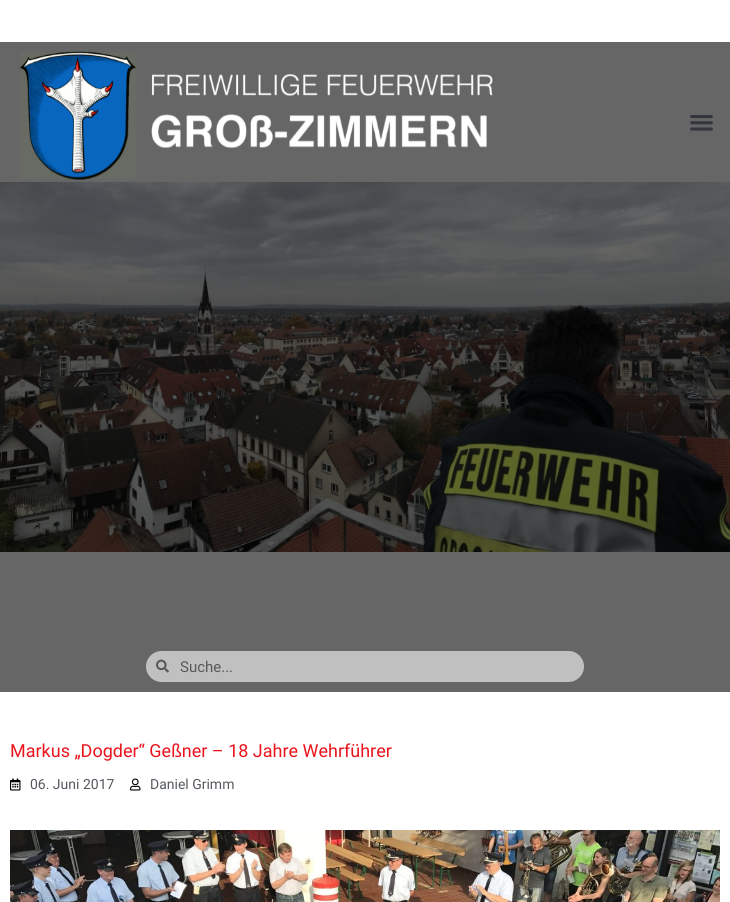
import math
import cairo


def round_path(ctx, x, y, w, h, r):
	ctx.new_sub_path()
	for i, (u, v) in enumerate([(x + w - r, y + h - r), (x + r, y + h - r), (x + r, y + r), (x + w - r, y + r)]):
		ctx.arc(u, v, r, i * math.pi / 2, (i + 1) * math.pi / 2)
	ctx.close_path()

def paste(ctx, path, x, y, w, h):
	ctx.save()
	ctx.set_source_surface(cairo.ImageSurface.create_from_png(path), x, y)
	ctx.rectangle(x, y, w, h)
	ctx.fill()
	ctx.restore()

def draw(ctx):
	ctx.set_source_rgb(1, 1, 1)
	ctx.paint()
	ctx.set_source_rgb(0.4, 0.4, 0.4)
	ctx.rectangle(0, 42, 730, 650)
	ctx.fill()
	paste(ctx, 'media/1.png', 20, 51, 473, 129)
	paste(ctx, 'media/2.png', 690, 115, 23, 16)
	ctx.set_source_rgb(0.753, 0.753, 0.753)
	round_path(ctx, 146, 651, 438, 31, 15.5)
	ctx.fill()
	paste(ctx, 'media/3.png', 156, 659, 13, 14)
	ctx.select_font_face('Roboto')
	ctx.set_font_size(15)
	ctx.set_source_rgb(0.345, 0.345, 0.345)
	ctx.move_to(180, 672)
	ctx.show_text('Suche...')
	paste(ctx, 'media/4.png', 0, 182, 730, 370)
	ctx.set_font_size(18)
	ctx.set_source_rgb(0.918, 0.075, 0.11)
	ctx.move_to(10, 757)
	ctx.show_text('Markus „Dogder“ Geßner – 18 Jahre Wehrführer')
	paste(ctx, 'media/5.png', 10, 778, 11, 13)
	ctx.set_font_size(14)
	ctx.set_source_rgb(0.329, 0.349, 0.373)
	ctx.move_to(30, 789)
	ctx.show_text('06. Juni 2017')
	paste(ctx, 'media/6.png', 130, 778, 11, 13)
	ctx.move_to(150, 789)
	ctx.show_text('Daniel Grimm')
	paste(ctx, 'media/7.png', 10, 830, 710, 72)


surface = cairo.ImageSurface(cairo.FORMAT_RGB24, 730, 902)
ctx = cairo.Context(surface)
options = cairo.FontOptions()
options.set_hint_metrics(cairo.HINT_METRICS_OFF)
options.set_hint_style(cairo.HINT_STYLE_NONE)
ctx.set_font_options(options)
ctx.set_miter_limit(4)
draw(ctx)
surface.write_to_png('image.png')
